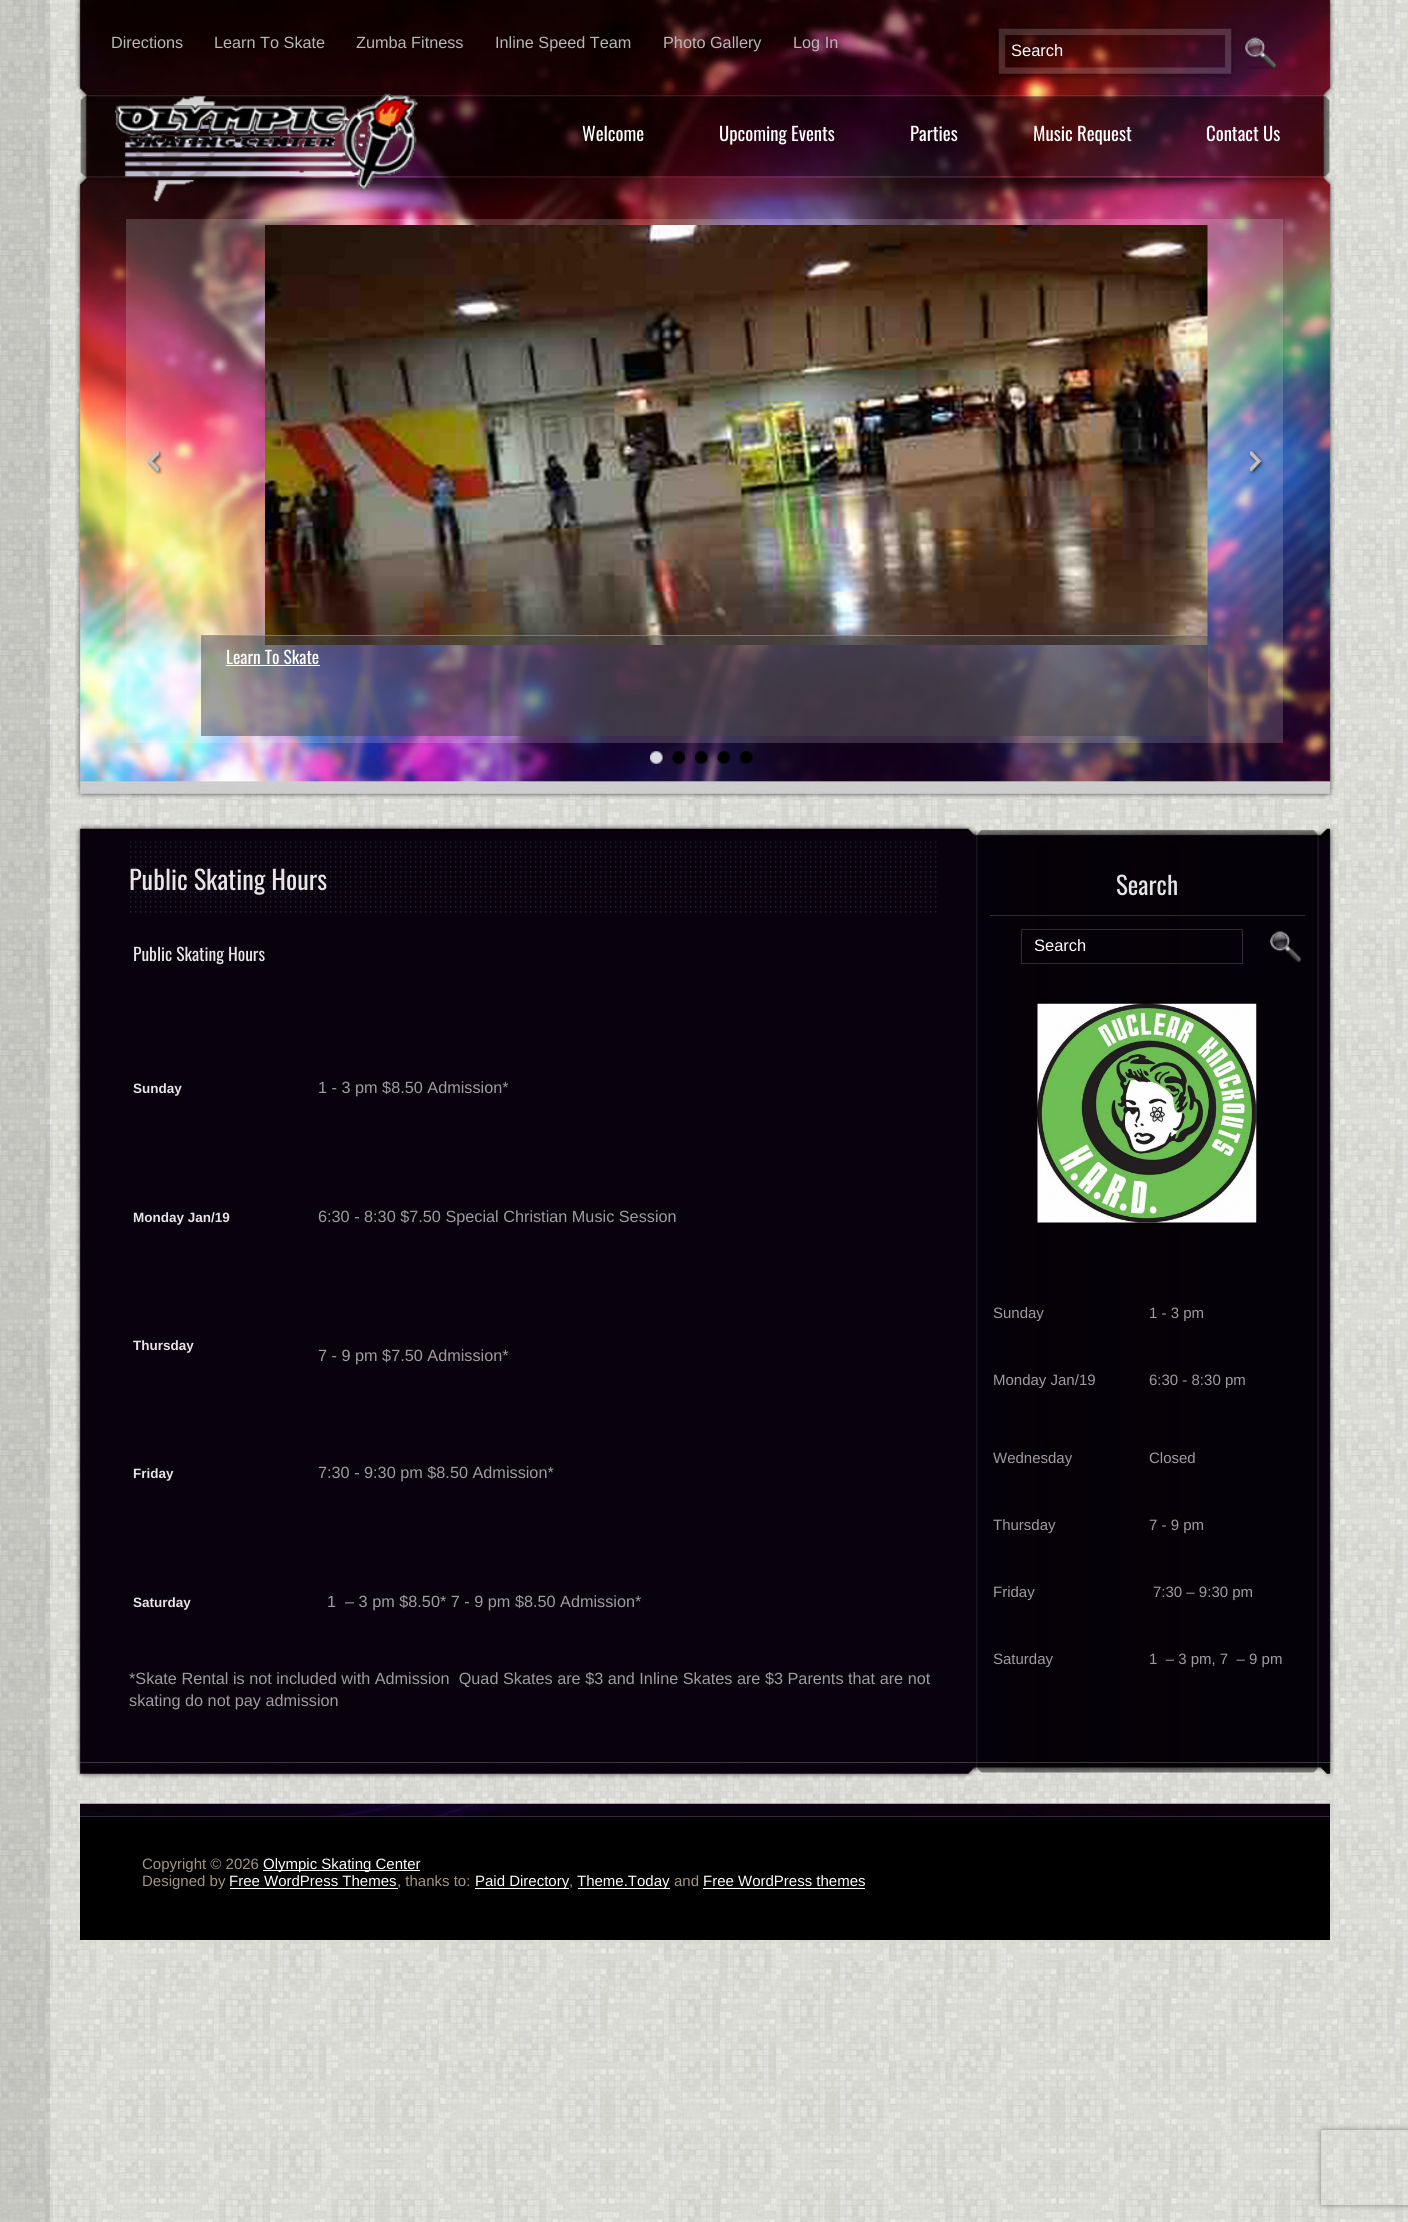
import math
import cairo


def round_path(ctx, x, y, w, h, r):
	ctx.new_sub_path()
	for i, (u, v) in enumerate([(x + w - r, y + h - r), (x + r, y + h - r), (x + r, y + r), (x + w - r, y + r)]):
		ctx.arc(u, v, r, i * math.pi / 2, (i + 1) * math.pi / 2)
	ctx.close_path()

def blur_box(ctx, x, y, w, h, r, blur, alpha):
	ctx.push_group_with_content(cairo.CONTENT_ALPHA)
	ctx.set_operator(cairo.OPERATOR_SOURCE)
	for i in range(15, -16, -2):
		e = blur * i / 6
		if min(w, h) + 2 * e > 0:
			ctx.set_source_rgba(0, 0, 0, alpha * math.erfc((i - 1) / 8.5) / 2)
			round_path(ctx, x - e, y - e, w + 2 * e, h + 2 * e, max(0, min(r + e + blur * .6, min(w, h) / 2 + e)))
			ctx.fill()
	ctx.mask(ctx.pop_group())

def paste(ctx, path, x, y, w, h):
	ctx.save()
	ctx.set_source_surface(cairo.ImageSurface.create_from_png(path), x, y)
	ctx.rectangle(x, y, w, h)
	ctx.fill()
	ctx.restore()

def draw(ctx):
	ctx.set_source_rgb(1, 1, 1)
	ctx.paint()
	paste(ctx, 'media/1.png', 0, 0, 1408, 2222)
	ctx.set_source_rgba(0, 0, 0, 0.1)
	ctx.rectangle(0, 0, 50, 2222)
	ctx.fill()
	paste(ctx, 'media/2.png', 7, 2140, 36, 56)
	paste(ctx, 'media/3.png', 75, 0, 1260, 799)
	ctx.select_font_face('Liberation Sans')
	ctx.set_font_size(16.25)
	ctx.set_source_rgb(0.71, 0.722, 0.733)
	for x, y, s in [
		(111, 48, 'Directions'),
		(214, 48, 'Learn To Skate'),
		(356, 48, 'Zumba Fitness'),
		(495, 48, 'Inline Speed Team'),
		(663, 48, 'Photo Gallery'),
		(793, 48, 'Log In'),
	]:
		ctx.move_to(x, y)
		ctx.show_text(s)
	ctx.set_font_size(16.5)
	ctx.set_source_rgb(1, 1, 1)
	ctx.move_to(1011, 56)
	ctx.show_text('Search')
	paste(ctx, 'media/4.png', 1245, 37, 32, 32)
	paste(ctx, 'media/6.png', 80, 95, 1250, 106)
	paste(ctx, 'media/5.png', 114, 93, 304, 109)
	ctx.select_font_face('Oswald')
	ctx.set_font_size(18.75)
	for x, y, s in [
		(582, 141, 'Welcome'),
		(719, 141, 'Upcoming Events'),
		(910, 141, 'Parties'),
		(1033, 141, 'Music Request'),
		(1206, 141, 'Contact Us'),
	]:
		ctx.move_to(x, y)
		ctx.show_text(s)
	ctx.set_source_rgba(1, 1, 1, 0.17)
	ctx.rectangle(126, 219, 1157, 524)
	ctx.fill()
	paste(ctx, 'media/7.png', 147, 450, 16, 25)
	paste(ctx, 'media/8.png', 1249, 450, 16, 25)
	paste(ctx, 'media/9.png', 265, 225, 943, 420)
	ctx.set_source_rgba(0.267, 0.267, 0.267, 0.5)
	ctx.rectangle(201, 635, 1007, 101)
	ctx.fill()
	ctx.set_source_rgba(0.667, 0.667, 0.667, 0.5)
	ctx.rectangle(201, 635, 1007, 1)
	ctx.fill()
	ctx.set_font_size(17.5)
	ctx.set_source_rgb(1, 1, 1)
	ctx.move_to(226, 664)
	ctx.show_text('Learn To Skate')
	ctx.rectangle(226, 665, 94, 1)
	ctx.fill()
	paste(ctx, 'media/10.png', 650, 751, 13, 13)
	paste(ctx, 'media/11.png', 672, 751, 13, 13)
	paste(ctx, 'media/12.png', 695, 751, 13, 13)
	paste(ctx, 'media/13.png', 717, 751, 13, 13)
	paste(ctx, 'media/14.png', 740, 751, 13, 13)
	paste(ctx, 'media/15.png', 75, 824, 1260, 16)
	paste(ctx, 'media/16.png', 75, 840, 1260, 923)
	paste(ctx, 'media/17.png', 130, 841, 807, 72)
	ctx.set_font_size(26.25)
	ctx.set_source_rgb(0.898, 0.898, 0.898)
	ctx.move_to(129, 890)
	ctx.show_text('Public Skating Hours')
	ctx.set_font_size(17.5)
	ctx.move_to(133, 961)
	ctx.show_text('Public Skating Hours')
	ctx.select_font_face('Liberation Sans', cairo.FONT_SLANT_NORMAL, cairo.FONT_WEIGHT_BOLD)
	ctx.set_font_size(13.5)
	ctx.move_to(133, 1093)
	ctx.show_text('Sunday')
	ctx.select_font_face('Liberation Sans')
	ctx.set_font_size(16.25)
	ctx.set_source_rgb(0.624, 0.612, 0.627)
	ctx.move_to(318, 1093)
	ctx.show_text('1 - 3 pm $8.50 Admission*')
	ctx.select_font_face('Liberation Sans', cairo.FONT_SLANT_NORMAL, cairo.FONT_WEIGHT_BOLD)
	ctx.set_font_size(13.5)
	ctx.set_source_rgb(0.898, 0.898, 0.898)
	ctx.move_to(133, 1222)
	ctx.show_text('Monday Jan/19')
	ctx.select_font_face('Liberation Sans')
	ctx.set_font_size(16.25)
	ctx.set_source_rgb(0.624, 0.612, 0.627)
	ctx.move_to(318, 1222)
	ctx.show_text('6:30 - 8:30 $7.50 Special Christian Music Session')
	ctx.select_font_face('Liberation Sans', cairo.FONT_SLANT_NORMAL, cairo.FONT_WEIGHT_BOLD)
	ctx.set_font_size(13.5)
	ctx.set_source_rgb(0.898, 0.898, 0.898)
	ctx.move_to(133, 1350)
	ctx.show_text('Thursday')
	ctx.select_font_face('Liberation Sans')
	ctx.set_font_size(16.25)
	ctx.set_source_rgb(0.624, 0.612, 0.627)
	ctx.move_to(318, 1361)
	ctx.show_text('7 - 9 pm $7.50 Admission*')
	ctx.select_font_face('Liberation Sans', cairo.FONT_SLANT_NORMAL, cairo.FONT_WEIGHT_BOLD)
	ctx.set_font_size(13.5)
	ctx.set_source_rgb(0.898, 0.898, 0.898)
	ctx.move_to(133, 1478)
	ctx.show_text('Friday')
	ctx.select_font_face('Liberation Sans')
	ctx.set_font_size(16.25)
	ctx.set_source_rgb(0.624, 0.612, 0.627)
	ctx.move_to(318, 1478)
	ctx.show_text('7:30 - 9:30 pm $8.50 Admission*')
	ctx.select_font_face('Liberation Sans', cairo.FONT_SLANT_NORMAL, cairo.FONT_WEIGHT_BOLD)
	ctx.set_font_size(13.5)
	ctx.set_source_rgb(0.898, 0.898, 0.898)
	ctx.move_to(133, 1607)
	ctx.show_text('Saturday')
	ctx.select_font_face('Liberation Sans')
	ctx.set_font_size(16.25)
	ctx.set_source_rgb(0.624, 0.612, 0.627)
	for x, y, s in [
		(327, 1607, '1  – 3 pm $8.50* 7 - 9 pm $8.50 Admission*'),
		(129, 1684, '*Skate Rental is not included with Admission  Quad Skates are $3 and Inline Skates are $3 Parents that are not'),
		(129, 1706, 'skating do not pay admission'),
	]:
		ctx.move_to(x, y)
		ctx.show_text(s)
	ctx.set_source_rgb(0.204, 0.161, 0.227)
	ctx.rectangle(990, 915, 315, 1)
	ctx.fill()
	ctx.select_font_face('Oswald')
	ctx.set_font_size(25)
	ctx.set_source_rgb(0.898, 0.898, 0.898)
	ctx.move_to(1116, 895)
	ctx.show_text('Search')
	ctx.rectangle(1021.5, 929.5, 221, 34)
	ctx.set_source_rgb(0.204, 0.161, 0.227)
	ctx.set_line_width(1)
	ctx.stroke()
	ctx.select_font_face('Liberation Sans')
	ctx.set_font_size(16.5)
	ctx.set_source_rgb(1, 1, 1)
	ctx.move_to(1034, 951)
	ctx.show_text('Search')
	paste(ctx, 'media/18.png', 1270, 931, 32, 32)
	paste(ctx, 'media/19.png', 1037, 1003, 220, 220)
	ctx.set_font_size(15)
	ctx.set_source_rgb(0.624, 0.612, 0.627)
	for x, y, s in [
		(993, 1318, 'Sunday'),
		(1149, 1318, '1 - 3 pm'),
		(993, 1385, 'Monday Jan/19'),
		(1149, 1385, '6:30 - 8:30 pm'),
		(993, 1463, 'Wednesday'),
		(1149, 1463, 'Closed'),
		(993, 1530, 'Thursday'),
		(1149, 1530, '7 - 9 pm'),
		(993, 1597, 'Friday'),
		(1153, 1597, '7:30 – 9:30 pm'),
		(993, 1664, 'Saturday'),
		(1149, 1664, '1  – 3 pm, 7  – 9 pm'),
	]:
		ctx.move_to(x, y)
		ctx.show_text(s)
	paste(ctx, 'media/20.png', 75, 1762, 1260, 17)
	ctx.set_source_rgb(0, 0, 0)
	ctx.rectangle(80, 1817, 1250, 123)
	ctx.fill()
	paste(ctx, 'media/21.png', 80, 1803, 1250, 13)
	ctx.set_source_rgb(0.204, 0.161, 0.227)
	ctx.rectangle(80, 1816, 1250, 1)
	ctx.fill()
	ctx.set_source_rgb(0.631, 0.58, 0.522)
	ctx.move_to(142, 1869)
	ctx.show_text('Copyright © 2026')
	ctx.set_source_rgb(1, 1, 1)
	ctx.rectangle(263, 1870, 157, 1)
	ctx.fill()
	ctx.move_to(263, 1869)
	ctx.show_text('Olympic Skating Center')
	ctx.set_source_rgb(0.631, 0.58, 0.522)
	ctx.move_to(142, 1886)
	ctx.show_text('Designed by')
	ctx.set_source_rgb(1, 1, 1)
	ctx.move_to(229, 1886)
	ctx.show_text('Free WordPress Themes')
	ctx.rectangle(230, 1888, 168, 1)
	ctx.fill()
	ctx.set_source_rgb(0.631, 0.58, 0.522)
	ctx.move_to(397, 1886)
	ctx.show_text(', thanks to:')
	ctx.set_source_rgb(1, 1, 1)
	ctx.rectangle(475, 1888, 94, 1)
	ctx.fill()
	ctx.move_to(475, 1886)
	ctx.show_text('Paid Directory')
	ctx.set_source_rgb(0.631, 0.58, 0.522)
	ctx.move_to(569, 1886)
	ctx.show_text(',')
	ctx.set_source_rgb(1, 1, 1)
	ctx.rectangle(578, 1888, 92, 1)
	ctx.fill()
	ctx.move_to(577, 1886)
	ctx.show_text('Theme.Today')
	ctx.set_source_rgb(0.631, 0.58, 0.522)
	ctx.move_to(674, 1886)
	ctx.show_text('and')
	ctx.set_source_rgb(1, 1, 1)
	ctx.move_to(703, 1886)
	ctx.show_text('Free WordPress themes')
	ctx.rectangle(703, 1888, 162, 1)
	ctx.fill()
	ctx.save()
	ctx.set_fill_rule(cairo.FILL_RULE_EVEN_ODD)
	ctx.new_path()
	ctx.move_to(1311, 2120)
	ctx.line_to(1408, 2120)
	ctx.line_to(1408, 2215)
	ctx.line_to(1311, 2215)
	ctx.close_path()
	ctx.move_to(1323.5, 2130)
	ctx.line_to(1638.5, 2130)
	ctx.curve_to(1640, 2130, 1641, 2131, 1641, 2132.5)
	ctx.line_to(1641, 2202.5)
	ctx.curve_to(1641, 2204, 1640, 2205, 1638.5, 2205)
	ctx.line_to(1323.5, 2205)
	ctx.curve_to(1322, 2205, 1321, 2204, 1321, 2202.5)
	ctx.line_to(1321, 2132.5)
	ctx.curve_to(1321, 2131, 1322, 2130, 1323.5, 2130)
	ctx.close_path()
	ctx.clip()
	ctx.set_source_rgb(0.502, 0.502, 0.502)
	blur_box(ctx, 1321, 2130, 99, 75, 2.5, 3, 1)
	ctx.restore()


surface = cairo.ImageSurface(cairo.FORMAT_RGB24, 1408, 2222)
ctx = cairo.Context(surface)
options = cairo.FontOptions()
options.set_hint_metrics(cairo.HINT_METRICS_OFF)
options.set_hint_style(cairo.HINT_STYLE_NONE)
ctx.set_font_options(options)
ctx.set_miter_limit(4)
draw(ctx)
surface.write_to_png('image.png')
